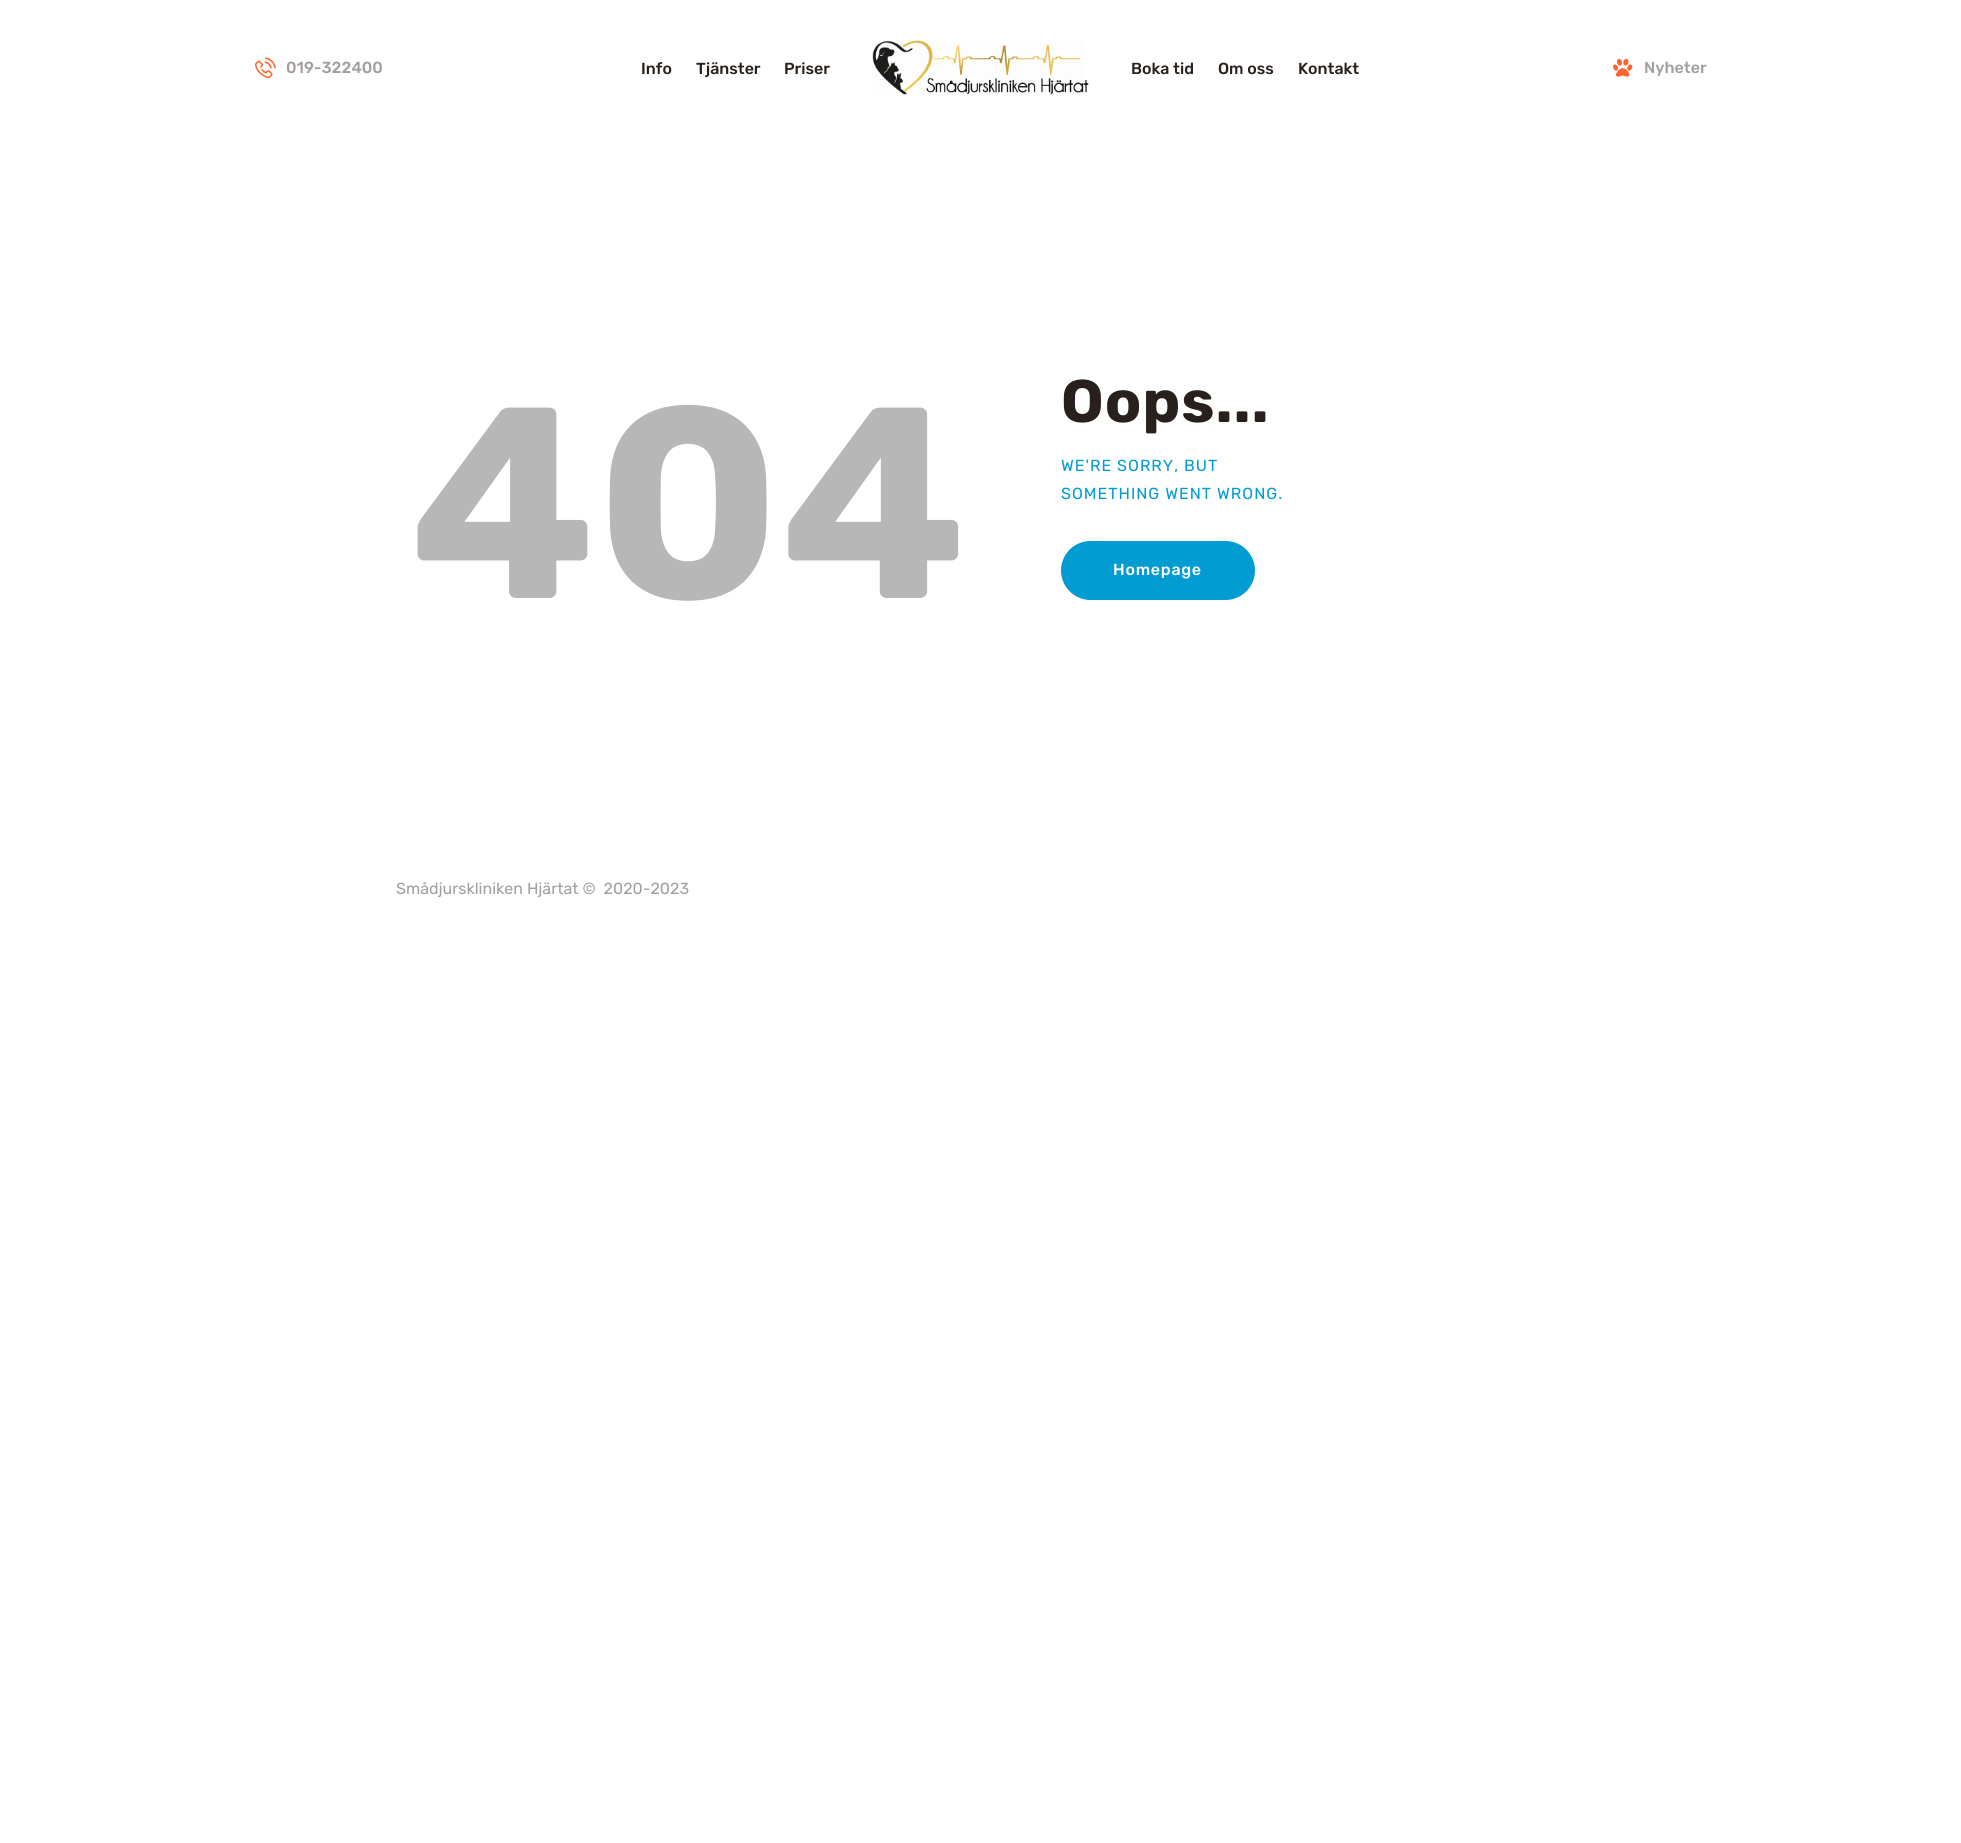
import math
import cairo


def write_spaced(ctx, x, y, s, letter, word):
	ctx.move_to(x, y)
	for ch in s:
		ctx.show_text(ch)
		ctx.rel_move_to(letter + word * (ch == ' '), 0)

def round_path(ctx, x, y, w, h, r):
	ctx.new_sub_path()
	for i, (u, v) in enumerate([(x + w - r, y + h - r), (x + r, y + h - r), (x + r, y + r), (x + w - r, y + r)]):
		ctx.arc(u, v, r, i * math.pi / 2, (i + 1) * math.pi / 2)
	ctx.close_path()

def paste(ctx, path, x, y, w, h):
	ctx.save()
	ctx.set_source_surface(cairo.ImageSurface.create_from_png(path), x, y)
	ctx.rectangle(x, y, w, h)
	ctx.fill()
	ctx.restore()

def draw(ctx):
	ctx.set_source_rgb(1, 1, 1)
	ctx.paint()
	paste(ctx, 'media/1.png', 255, 57, 21, 22)
	ctx.select_font_face('Rubik Medium')
	ctx.set_font_size(16)
	ctx.set_source_rgb(0.635, 0.624, 0.62)
	ctx.move_to(286, 73)
	ctx.show_text('019-322400')
	ctx.set_source_rgb(0.157, 0.125, 0.114)
	for x, y, s in [
		(641, 74, 'Info'),
		(696, 74, 'Tjänster'),
		(784, 74, 'Priser'),
	]:
		ctx.move_to(x, y)
		ctx.show_text(s)
	paste(ctx, 'media/2.png', 872, 40, 217, 55)
	for x, y, s in [
		(1131, 74, 'Boka tid'),
		(1218, 74, 'Om oss'),
		(1298, 74, 'Kontakt'),
	]:
		ctx.move_to(x, y)
		ctx.show_text(s)
	paste(ctx, 'media/3.png', 1613, 58, 20, 19)
	ctx.set_source_rgb(0.635, 0.624, 0.62)
	ctx.move_to(1644, 73)
	ctx.show_text('Nyheter')
	ctx.select_font_face('Rubik', cairo.FONT_SLANT_NORMAL, cairo.FONT_WEIGHT_BOLD)
	ctx.set_font_size(272)
	ctx.set_source_rgb(0.718, 0.718, 0.718)
	ctx.move_to(410, 598)
	ctx.show_text('404')
	ctx.set_font_size(60)
	ctx.set_source_rgb(0.157, 0.125, 0.114)
	write_spaced(ctx, 1061, 422, 'Oops...', 1, 0)
	ctx.select_font_face('Rubik')
	ctx.set_font_size(16)
	ctx.set_source_rgb(0.004, 0.612, 0.824)
	write_spaced(ctx, 1061, 471, 'WE\'RE SORRY, BUT', 1, 0)
	write_spaced(ctx, 1061, 499, 'SOMETHING WENT WRONG.', 1, 0)
	round_path(ctx, 1061, 541, 194, 59, 29.5)
	ctx.fill()
	ctx.select_font_face('Rubik Medium')
	ctx.set_source_rgb(1, 1, 1)
	write_spaced(ctx, 1113, 575, 'Homepage', 0.75, 0)
	ctx.select_font_face('Rubik')
	ctx.set_source_rgb(0.635, 0.624, 0.62)
	ctx.move_to(396, 894)
	ctx.show_text('Smådjurskliniken Hjärtat ©  2020-2023')


surface = cairo.ImageSurface(cairo.FORMAT_RGB24, 1961, 1843)
ctx = cairo.Context(surface)
options = cairo.FontOptions()
options.set_hint_metrics(cairo.HINT_METRICS_OFF)
options.set_hint_style(cairo.HINT_STYLE_NONE)
ctx.set_font_options(options)
ctx.set_miter_limit(4)
draw(ctx)
surface.write_to_png('image.png')
